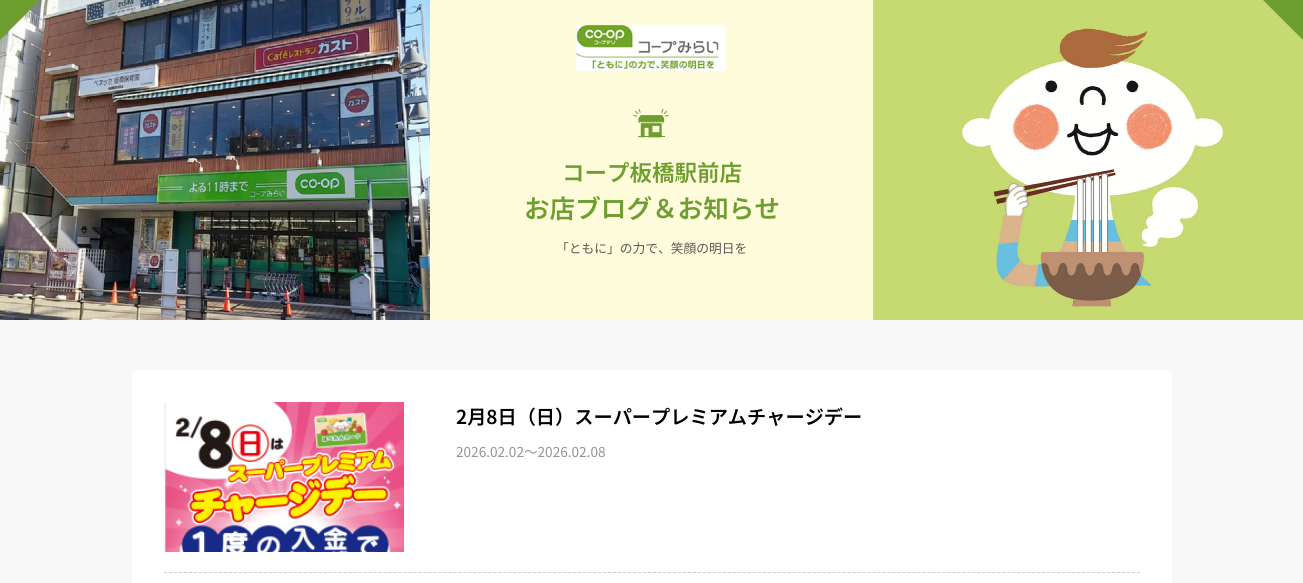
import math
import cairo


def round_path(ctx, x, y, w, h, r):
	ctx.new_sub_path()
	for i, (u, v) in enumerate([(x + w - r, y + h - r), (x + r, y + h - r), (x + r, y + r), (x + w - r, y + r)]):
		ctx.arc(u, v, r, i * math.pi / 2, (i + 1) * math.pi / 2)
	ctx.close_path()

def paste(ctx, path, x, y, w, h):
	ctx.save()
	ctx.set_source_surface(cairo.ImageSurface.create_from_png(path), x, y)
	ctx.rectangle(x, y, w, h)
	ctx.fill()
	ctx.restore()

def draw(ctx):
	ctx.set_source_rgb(0.969, 0.969, 0.969)
	ctx.paint()
	ctx.set_source_rgb(1, 0.988, 0.859)
	ctx.rectangle(430, 0, 443, 320)
	ctx.fill()
	paste(ctx, 'media/1.png', 0, 0, 430, 320)
	ctx.set_source_rgb(0.431, 0.62, 0.188)
	ctx.new_path()
	ctx.move_to(40, 0)
	ctx.line_to(0, 40)
	ctx.line_to(0, 0)
	ctx.close_path()
	ctx.fill()
	paste(ctx, 'media/4.png', 873, 0, 430, 320)
	ctx.new_path()
	ctx.move_to(1263, 0)
	ctx.line_to(1303, 40)
	ctx.line_to(1303, 0)
	ctx.close_path()
	ctx.fill()
	paste(ctx, 'media/2.png', 576, 25, 150, 46)
	paste(ctx, 'media/3.png', 633, 109, 36, 29)
	ctx.select_font_face('Noto Sans JP SemiBold')
	ctx.set_font_size(22.5)
	ctx.move_to(562, 181)
	ctx.show_text('コープ板橋駅前店')
	ctx.set_font_size(25.6)
	ctx.move_to(524, 218)
	ctx.show_text('お店ブログ＆お知らせ')
	ctx.select_font_face('Noto Sans JP')
	ctx.set_font_size(12.75)
	ctx.set_source_rgb(0.349, 0.349, 0.349)
	ctx.move_to(556, 253)
	ctx.show_text('「ともに」の力で、笑顔の明日を')
	ctx.set_source_rgb(1, 1, 1)
	round_path(ctx, 132, 370, 1040, 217, 4)
	ctx.fill()
	ctx.new_path()
	ctx.move_to(164, 572.5)
	ctx.line_to(1140, 572.5)
	ctx.set_source_rgb(0.8, 0.8, 0.8)
	ctx.set_line_width(1)
	ctx.set_dash([3, 1.99])
	ctx.stroke()
	paste(ctx, 'media/5.png', 164, 402, 240, 150)
	ctx.select_font_face('Noto Sans JP SemiBold')
	ctx.set_font_size(19.2)
	ctx.set_source_rgb(0, 0, 0)
	ctx.move_to(456, 424)
	ctx.show_text('2月8日（日）スーパープレミアムチャージデー')
	ctx.select_font_face('Noto Sans JP')
	ctx.set_font_size(13.6)
	ctx.set_source_rgb(0.576, 0.576, 0.576)
	ctx.move_to(456, 457)
	ctx.show_text('2026.02.02～2026.02.08')


surface = cairo.ImageSurface(cairo.FORMAT_RGB24, 1303, 583)
ctx = cairo.Context(surface)
options = cairo.FontOptions()
options.set_hint_metrics(cairo.HINT_METRICS_OFF)
options.set_hint_style(cairo.HINT_STYLE_NONE)
ctx.set_font_options(options)
ctx.set_miter_limit(4)
draw(ctx)
surface.write_to_png('image.png')
